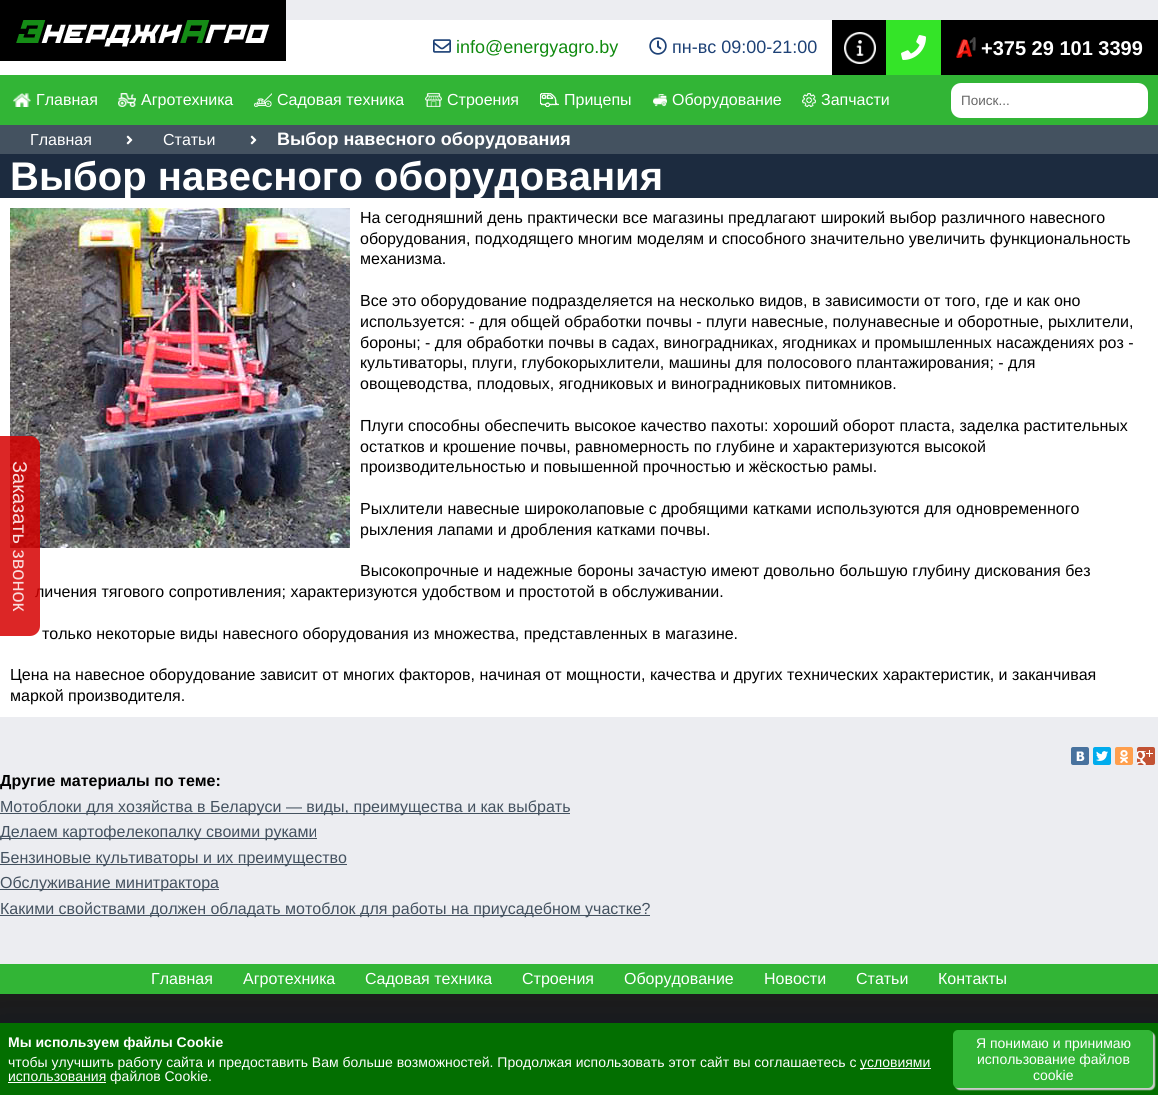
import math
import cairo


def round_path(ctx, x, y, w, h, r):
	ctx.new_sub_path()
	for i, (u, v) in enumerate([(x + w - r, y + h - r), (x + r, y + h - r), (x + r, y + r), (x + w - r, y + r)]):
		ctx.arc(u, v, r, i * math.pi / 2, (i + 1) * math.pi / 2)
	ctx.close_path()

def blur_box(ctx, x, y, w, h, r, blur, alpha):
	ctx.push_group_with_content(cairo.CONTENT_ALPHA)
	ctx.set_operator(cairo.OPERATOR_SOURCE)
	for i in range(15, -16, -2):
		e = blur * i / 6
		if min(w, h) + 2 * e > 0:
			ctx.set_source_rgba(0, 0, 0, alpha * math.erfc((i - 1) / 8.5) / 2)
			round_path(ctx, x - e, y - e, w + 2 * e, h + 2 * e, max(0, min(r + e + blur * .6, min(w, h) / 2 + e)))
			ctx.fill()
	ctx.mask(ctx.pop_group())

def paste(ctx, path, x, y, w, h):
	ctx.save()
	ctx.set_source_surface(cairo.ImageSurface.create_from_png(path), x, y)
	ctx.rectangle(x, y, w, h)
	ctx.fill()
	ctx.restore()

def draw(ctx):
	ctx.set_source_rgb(0.925, 0.929, 0.945)
	ctx.paint()
	ctx.set_source_rgb(1, 1, 1)
	ctx.rectangle(0, 20, 832, 55)
	ctx.fill()
	ctx.set_source_rgb(0, 0, 0)
	ctx.rectangle(0, 0, 286, 61)
	ctx.fill()
	paste(ctx, 'media/1.png', 16, 20, 254, 27)
	paste(ctx, 'media/2.png', 433, 39, 18, 14)
	ctx.select_font_face('Liberation Sans')
	ctx.set_font_size(18)
	ctx.set_source_rgb(0.063, 0.541, 0.059)
	ctx.move_to(456, 53)
	ctx.show_text('info@energyagro.by')
	paste(ctx, 'media/3.png', 649, 37, 18, 18)
	ctx.set_source_rgb(0.114, 0.255, 0.463)
	ctx.move_to(672, 53)
	ctx.show_text('пн-вс 09:00-21:00')
	ctx.set_source_rgb(0, 0, 0)
	ctx.rectangle(832, 20, 54, 55)
	ctx.fill()
	paste(ctx, 'media/4.png', 844, 32, 32, 32)
	ctx.set_source_rgb(0.204, 0.894, 0.157)
	ctx.rectangle(886, 20, 55, 55)
	ctx.fill()
	paste(ctx, 'media/5.png', 901, 35, 25, 25)
	ctx.set_source_rgb(0, 0, 0)
	ctx.rectangle(941, 20, 217, 55)
	ctx.fill()
	paste(ctx, 'media/6.png', 956, 37, 20, 21)
	ctx.select_font_face('Liberation Sans', cairo.FONT_SLANT_NORMAL, cairo.FONT_WEIGHT_BOLD)
	ctx.set_font_size(20)
	ctx.set_source_rgb(1, 1, 1)
	ctx.move_to(981, 55)
	ctx.show_text('+375 29 101 3399')
	ctx.set_source_rgb(0.196, 0.71, 0.212)
	ctx.rectangle(0, 75, 1158, 50)
	ctx.fill()
	paste(ctx, 'media/7.png', 13, 93, 18, 14)
	ctx.select_font_face('Liberation Sans')
	ctx.set_font_size(16)
	ctx.set_source_rgb(1, 1, 1)
	ctx.move_to(36, 105)
	ctx.show_text('Главная')
	paste(ctx, 'media/8.png', 118, 93, 18, 14)
	ctx.move_to(141, 105)
	ctx.show_text('Агротехника')
	paste(ctx, 'media/9.png', 254, 93, 18, 14)
	ctx.move_to(277, 105)
	ctx.show_text('Садовая техника')
	paste(ctx, 'media/10.png', 425, 93, 17, 14)
	ctx.move_to(447, 105)
	ctx.show_text('Строения')
	paste(ctx, 'media/11.png', 540, 93, 19, 14)
	ctx.move_to(564, 105)
	ctx.show_text('Прицепы')
	paste(ctx, 'media/12.png', 653, 94, 14, 13)
	ctx.move_to(672, 105)
	ctx.show_text('Оборудование')
	paste(ctx, 'media/13.png', 802, 93, 14, 14)
	ctx.move_to(821, 105)
	ctx.show_text('Запчасти')
	round_path(ctx, 951, 83, 197, 35, 10)
	ctx.fill()
	ctx.set_font_size(13.5)
	ctx.set_source_rgb(0.4, 0.4, 0.4)
	ctx.move_to(961, 105)
	ctx.show_text('Поиск...')
	ctx.set_source_rgb(0.267, 0.322, 0.376)
	ctx.rectangle(0, 125, 1158, 29)
	ctx.fill()
	ctx.set_font_size(16)
	ctx.set_source_rgb(1, 1, 1)
	ctx.move_to(30, 145)
	ctx.show_text('Главная')
	paste(ctx, 'media/14.png', 126, 135, 7, 10)
	ctx.move_to(163, 145)
	ctx.show_text('Статьи')
	paste(ctx, 'media/14.png', 250, 135, 7, 10)
	ctx.select_font_face('Liberation Sans', cairo.FONT_SLANT_NORMAL, cairo.FONT_WEIGHT_BOLD)
	ctx.set_font_size(18)
	ctx.move_to(277, 145)
	ctx.show_text('Выбор навесного оборудования')
	ctx.set_source_rgb(0.11, 0.169, 0.247)
	ctx.rectangle(0, 154, 1158, 44)
	ctx.fill()
	ctx.set_source_rgb(1, 1, 1)
	ctx.rectangle(0, 198, 1158, 519)
	ctx.fill()
	ctx.set_font_size(40)
	ctx.move_to(10, 190)
	ctx.show_text('Выбор навесного оборудования')
	paste(ctx, 'media/15.png', 10, 208, 340, 340)
	ctx.select_font_face('Liberation Sans')
	ctx.set_font_size(16)
	ctx.set_source_rgb(0, 0, 0)
	for x, y, s in [
		(360, 223, 'На сегодняшний день практически все магазины предлагают широкий выбор различного навесного'),
		(360, 244, 'оборудования, подходящего многим моделям и способного значительно увеличить функциональность'),
		(360, 264, 'механизма.'),
		(360, 306, 'Все это оборудование подразделяется на несколько видов, в зависимости от того, где и как оно'),
		(360, 327, 'используется: - для общей обработки почвы - плуги навесные, полунавесные и оборотные, рыхлители,'),
		(360, 348, 'бороны; - для обработки почвы в садах, виноградниках, ягодниках и промышленных насаждениях роз -'),
		(360, 368, 'культиваторы, плуги, глубокорыхлители, машины для полосового плантажирования; - для'),
		(360, 389, 'овощеводства, плодовых, ягодниковых и виноградниковых питомников.'),
		(360, 431, 'Плуги способны обеспечить высокое качество пахоты: хороший оборот пласта, заделка растительных'),
		(360, 452, 'остатков и крошение почвы, равномерность по глубине и характеризуются высокой'),
		(360, 472, 'производительностью и повышенной прочностью и жёскостью рамы.'),
		(360, 514, 'Рыхлители навесные широколаповые с дробящими катками используются для одновременного'),
		(360, 535, 'рыхления лапами и дробления катками почвы.'),
		(360, 576, 'Высокопрочные и надежные бороны зачастую имеют довольно большую глубину дискования без'),
		(35, 597, 'личения тягового сопротивления; характеризуются удобством и простотой в обслуживании.'),
		(42, 639, 'только некоторые виды навесного оборудования из множества, представленных в магазине.'),
		(10, 680, 'Цена на навесное оборудование зависит от многих факторов, начиная от мощности, качества и других технических характеристик, и заканчивая'),
		(10, 701, 'маркой производителя.'),
	]:
		ctx.move_to(x, y)
		ctx.show_text(s)
	ctx.set_source_rgb(0.282, 0.447, 0.62)
	round_path(ctx, 1071, 747, 18, 18, 2)
	ctx.fill()
	paste(ctx, 'media/16.png', 1076, 751, 9, 10)
	ctx.set_source_rgb(0, 0.675, 0.929)
	round_path(ctx, 1093, 747, 18, 18, 2)
	ctx.fill()
	paste(ctx, 'media/17.png', 1096, 751, 12, 10)
	ctx.set_source_rgb(1, 0.624, 0.302)
	round_path(ctx, 1115, 747, 18, 18, 2)
	ctx.fill()
	paste(ctx, 'media/18.png', 1120, 750, 8, 13)
	ctx.set_source_rgb(0.761, 0.322, 0.204)
	round_path(ctx, 1137, 747, 18, 18, 2)
	ctx.fill()
	paste(ctx, 'media/19.png', 1137, 750, 16, 15)
	ctx.select_font_face('Liberation Sans', cairo.FONT_SLANT_NORMAL, cairo.FONT_WEIGHT_BOLD)
	ctx.set_source_rgb(0, 0, 0)
	ctx.move_to(0, 786)
	ctx.show_text('Другие материалы по теме:')
	ctx.set_source_rgb(0.267, 0.322, 0.376)
	ctx.rectangle(0, 813, 570, 1)
	ctx.fill()
	ctx.select_font_face('Liberation Sans')
	ctx.move_to(0, 812)
	ctx.show_text('Мотоблоки для хозяйства в Беларуси — виды, преимущества и как выбрать')
	ctx.rectangle(0, 838, 317, 1)
	ctx.fill()
	ctx.move_to(0, 837)
	ctx.show_text('Делаем картофелекопалку своими руками')
	ctx.rectangle(0, 864, 347, 1)
	ctx.fill()
	ctx.move_to(0, 863)
	ctx.show_text('Бензиновые культиваторы и их преимущество')
	ctx.rectangle(0, 889, 219, 1)
	ctx.fill()
	ctx.move_to(0, 888)
	ctx.show_text('Обслуживание минитрактора')
	ctx.rectangle(0, 915, 650, 1)
	ctx.fill()
	ctx.move_to(0, 914)
	ctx.show_text('Какими свойствами должен обладать мотоблок для работы на приусадебном участке?')
	ctx.set_source_rgba(0.839, 0, 0, 0.85)
	ctx.new_path()
	ctx.move_to(0, 436)
	ctx.line_to(30, 436)
	ctx.curve_to(35.5, 436, 40, 440.5, 40, 446)
	ctx.line_to(40, 626)
	ctx.curve_to(40, 631.5, 35.5, 636, 30, 636)
	ctx.line_to(0, 636)
	ctx.close_path()
	ctx.fill()
	ctx.set_font_size(20)
	ctx.set_source_rgb(0.973, 0.863, 0.863)
	ctx.save()
	ctx.translate(13, 461)
	ctx.rotate(90 * math.pi / 180)
	ctx.move_to(0, 0)
	ctx.show_text('Заказать звонок')
	ctx.restore()
	ctx.set_source_rgb(0.196, 0.71, 0.212)
	ctx.rectangle(0, 964, 1158, 30)
	ctx.fill()
	ctx.set_font_size(16)
	ctx.set_source_rgb(1, 1, 1)
	for x, y, s in [
		(151, 984, 'Главная'),
		(243, 984, 'Агротехника'),
		(365, 984, 'Садовая техника'),
		(522, 984, 'Строения'),
		(624, 984, 'Оборудование'),
		(764, 984, 'Новости'),
		(856, 984, 'Статьи'),
		(938, 984, 'Контакты'),
	]:
		ctx.move_to(x, y)
		ctx.show_text(s)
	ctx.set_source_rgb(0.11, 0.11, 0.11)
	ctx.rectangle(0, 994, 1158, 29)
	ctx.fill()
	ctx.set_source_rgb(0, 0.078, 0.235)
	blur_box(ctx, 0, 1042, 1158, 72, 0, 19, 1)
	ctx.set_source_rgb(0.012, 0.435, 0.004)
	ctx.rectangle(0, 1023, 1158, 72)
	ctx.fill()
	ctx.select_font_face('Liberation Sans', cairo.FONT_SLANT_NORMAL, cairo.FONT_WEIGHT_BOLD)
	ctx.set_font_size(14)
	ctx.set_source_rgb(1, 1, 1)
	ctx.move_to(8, 1047)
	ctx.show_text('Мы используем файлы Cookie')
	ctx.select_font_face('Liberation Sans')
	ctx.move_to(8, 1067)
	ctx.show_text('чтобы улучшить работу сайта и предоставить Вам больше возможностей. Продолжая использовать этот сайт вы соглашаетесь с')
	ctx.rectangle(860, 1068, 71, 1)
	ctx.fill()
	ctx.move_to(860, 1067)
	ctx.show_text('условиями')
	ctx.rectangle(8, 1082, 98, 1)
	ctx.fill()
	ctx.move_to(8, 1081)
	ctx.show_text('использования файлов Cookie.')
	ctx.set_source_rgb(0.8, 0.8, 0.8)
	blur_box(ctx, 955, 1032, 200, 58, 5, 0.5, 1)
	ctx.set_source_rgb(0.196, 0.71, 0.212)
	round_path(ctx, 953, 1030, 200, 58, 5)
	ctx.fill()
	ctx.set_source_rgb(1, 1, 1)
	for x, y, s in [
		(976, 1048, 'Я понимаю и принимаю'),
		(977, 1064, 'использование файлов'),
		(1033, 1080, 'cookie'),
	]:
		ctx.move_to(x, y)
		ctx.show_text(s)


surface = cairo.ImageSurface(cairo.FORMAT_RGB24, 1158, 1095)
ctx = cairo.Context(surface)
options = cairo.FontOptions()
options.set_hint_metrics(cairo.HINT_METRICS_OFF)
options.set_hint_style(cairo.HINT_STYLE_NONE)
ctx.set_font_options(options)
ctx.set_miter_limit(4)
draw(ctx)
surface.write_to_png('image.png')
